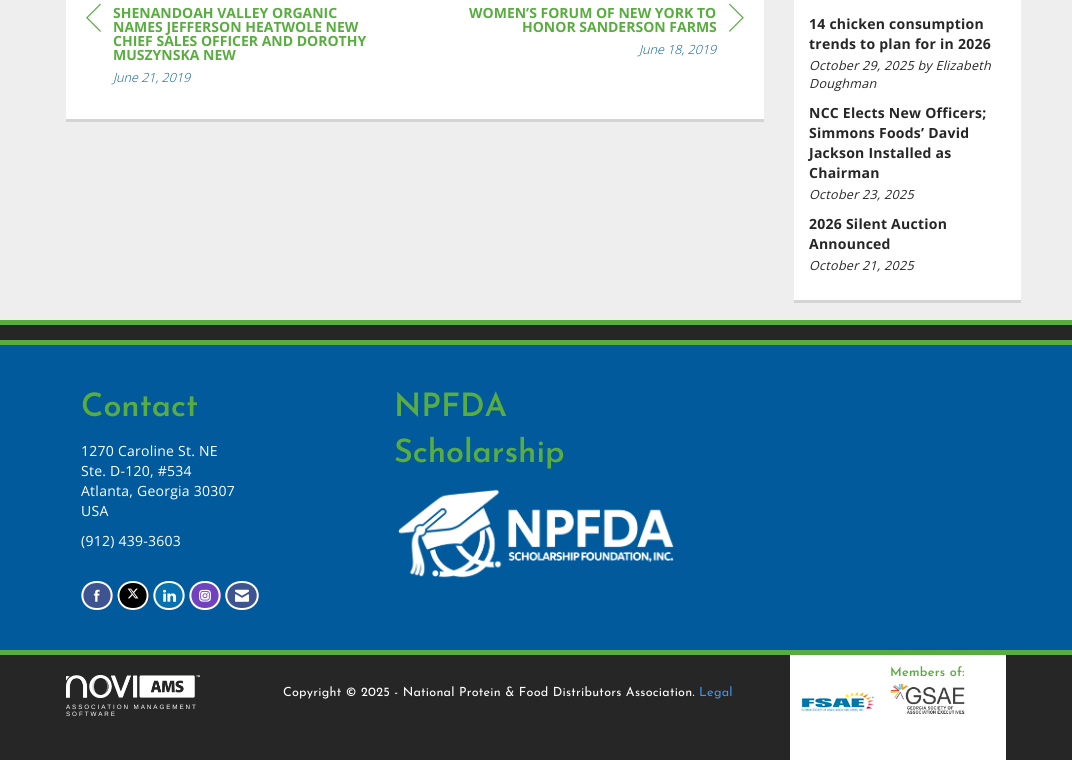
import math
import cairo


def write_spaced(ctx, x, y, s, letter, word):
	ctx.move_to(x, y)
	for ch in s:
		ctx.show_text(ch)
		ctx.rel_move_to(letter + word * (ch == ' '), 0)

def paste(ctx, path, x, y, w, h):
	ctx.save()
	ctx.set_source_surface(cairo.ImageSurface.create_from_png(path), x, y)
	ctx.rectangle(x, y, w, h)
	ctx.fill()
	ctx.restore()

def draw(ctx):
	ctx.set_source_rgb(0.933, 0.933, 0.933)
	ctx.paint()
	ctx.set_source_rgb(0.831, 0.831, 0.831)
	ctx.rectangle(66, 119, 698, 3)
	ctx.fill()
	ctx.set_source_rgb(1, 1, 1)
	ctx.rectangle(66, 0, 698, 119)
	ctx.fill()
	paste(ctx, 'media/1.png', 86, 3, 15, 29)
	ctx.select_font_face('Open Sans', cairo.FONT_SLANT_NORMAL, cairo.FONT_WEIGHT_BOLD)
	ctx.set_font_size(14)
	ctx.set_source_rgb(0.349, 0.678, 0.251)
	for x, y, s in [
		(113, 18, 'SHENANDOAH VALLEY ORGANIC'),
		(113, 32, 'NAMES JEFFERSON HEATWOLE NEW'),
		(113, 46, 'CHIEF SALES OFFICER AND DOROTHY'),
		(113, 60, 'MUSZYNSKA NEW'),
	]:
		ctx.move_to(x, y)
		ctx.show_text(s)
	ctx.select_font_face('Open Sans Light', cairo.FONT_SLANT_ITALIC)
	ctx.set_font_size(12.6)
	ctx.set_source_rgb(0, 0.353, 0.612)
	ctx.move_to(113, 82)
	ctx.show_text('June 21, 2019')
	ctx.select_font_face('Open Sans', cairo.FONT_SLANT_NORMAL, cairo.FONT_WEIGHT_BOLD)
	ctx.set_font_size(14)
	ctx.set_source_rgb(0.349, 0.678, 0.251)
	ctx.move_to(469, 18)
	ctx.show_text('WOMEN’S FORUM OF NEW YORK TO')
	ctx.move_to(522, 32)
	ctx.show_text('HONOR SANDERSON FARMS')
	paste(ctx, 'media/2.png', 729, 3, 15, 29)
	ctx.select_font_face('Open Sans Light', cairo.FONT_SLANT_ITALIC)
	ctx.set_font_size(12.6)
	ctx.set_source_rgb(0, 0.353, 0.612)
	ctx.move_to(639, 54)
	ctx.show_text('June 18, 2019')
	ctx.set_source_rgb(0.831, 0.831, 0.831)
	ctx.rectangle(794, 300, 227, 3)
	ctx.fill()
	ctx.set_source_rgb(1, 1, 1)
	ctx.rectangle(794, 0, 227, 300)
	ctx.fill()
	ctx.select_font_face('Open Sans', cairo.FONT_SLANT_NORMAL, cairo.FONT_WEIGHT_BOLD)
	ctx.set_font_size(14)
	ctx.set_source_rgb(0.149, 0.149, 0.149)
	write_spaced(ctx, 809, 29, '14 chicken consumption', 0.25, 0)
	write_spaced(ctx, 809, 49, 'trends to plan for in 2026', 0.25, 0)
	ctx.select_font_face('Open Sans', cairo.FONT_SLANT_ITALIC)
	ctx.set_font_size(12.6)
	write_spaced(ctx, 809, 70, 'October 29, 2025 by Elizabeth', 0.25, 0)
	write_spaced(ctx, 809, 88, 'Doughman', 0.25, 0)
	ctx.select_font_face('Open Sans', cairo.FONT_SLANT_NORMAL, cairo.FONT_WEIGHT_BOLD)
	ctx.set_font_size(14)
	for x, y, s in [
		(809, 118, 'NCC Elects New Officers;'),
		(809, 138, 'Simmons Foods’ David'),
		(809, 158, 'Jackson Installed as'),
		(809, 178, 'Chairman'),
	]:
		write_spaced(ctx, x, y, s, 0.25, 0)
	ctx.select_font_face('Open Sans', cairo.FONT_SLANT_ITALIC)
	ctx.set_font_size(12.6)
	write_spaced(ctx, 809, 199, 'October 23, 2025', 0.25, 0)
	ctx.select_font_face('Open Sans', cairo.FONT_SLANT_NORMAL, cairo.FONT_WEIGHT_BOLD)
	ctx.set_font_size(14)
	write_spaced(ctx, 809, 229, '2026 Silent Auction', 0.25, 0)
	write_spaced(ctx, 809, 249, 'Announced', 0.25, 0)
	ctx.select_font_face('Open Sans', cairo.FONT_SLANT_ITALIC)
	ctx.set_font_size(12.6)
	write_spaced(ctx, 809, 270, 'October 21, 2025', 0.25, 0)
	ctx.set_source_rgb(0.349, 0.678, 0.251)
	ctx.rectangle(0, 320, 1072, 5)
	ctx.fill()
	ctx.set_source_rgb(0.149, 0.149, 0.149)
	ctx.rectangle(0, 325, 1072, 15)
	ctx.fill()
	ctx.set_source_rgb(0.349, 0.678, 0.251)
	ctx.rectangle(0, 340, 1072, 5)
	ctx.fill()
	ctx.set_source_rgb(0, 0.353, 0.612)
	ctx.rectangle(0, 345, 1072, 305)
	ctx.fill()
	ctx.select_font_face('Josefin Sans SemiBold')
	ctx.set_font_size(32.25)
	ctx.set_source_rgb(0.349, 0.678, 0.251)
	ctx.move_to(81, 416)
	ctx.show_text('Contact')
	ctx.select_font_face('Open Sans')
	ctx.set_font_size(14)
	ctx.set_source_rgb(1, 1, 1)
	for x, y, s in [
		(81, 456, '1270 Caroline St. NE'),
		(81, 476, 'Ste. D-120, #534'),
		(81, 496, 'Atlanta, Georgia 30307'),
		(81, 516, 'USA'),
		(81, 546, '(912) 439-3603'),
	]:
		write_spaced(ctx, x, y, s, 0.25, 0)
	ctx.set_source_rgb(0.243, 0.329, 0.569)
	ctx.new_path()
	ctx.move_to(97, 581)
	ctx.curve_to(106, 581, 113, 587.5, 113, 595.5)
	ctx.curve_to(113, 603.5, 106, 610, 97, 610)
	ctx.curve_to(88, 610, 81, 603.5, 81, 595.5)
	ctx.curve_to(81, 587.5, 88, 581, 97, 581)
	ctx.close_path()
	ctx.fill()
	ctx.new_path()
	ctx.move_to(97, 582)
	ctx.curve_to(116.5, 582, 116.5, 609, 97, 609)
	ctx.curve_to(77.5, 609, 77.5, 582, 97, 582)
	ctx.close_path()
	ctx.set_source_rgb(1, 1, 1)
	ctx.stroke()
	paste(ctx, 'media/3.png', 93, 589, 7, 13)
	ctx.set_source_rgb(0, 0, 0)
	ctx.new_path()
	ctx.move_to(133, 581)
	ctx.curve_to(142, 581, 149, 587.5, 149, 595.5)
	ctx.curve_to(149, 603.5, 142, 610, 133, 610)
	ctx.curve_to(124, 610, 117, 603.5, 117, 595.5)
	ctx.curve_to(117, 587.5, 124, 581, 133, 581)
	ctx.close_path()
	ctx.fill()
	ctx.new_path()
	ctx.move_to(133, 582)
	ctx.curve_to(152.5, 582, 152.5, 609, 133, 609)
	ctx.curve_to(113.5, 609, 113.5, 582, 133, 582)
	ctx.close_path()
	ctx.set_source_rgb(1, 1, 1)
	ctx.stroke()
	paste(ctx, 'media/4.png', 127, 588, 12, 11)
	ctx.set_source_rgb(0.035, 0.447, 0.694)
	ctx.new_path()
	ctx.move_to(169, 581)
	ctx.curve_to(178, 581, 185, 587.5, 185, 595.5)
	ctx.curve_to(185, 603.5, 178, 610, 169, 610)
	ctx.curve_to(160, 610, 153, 603.5, 153, 595.5)
	ctx.curve_to(153, 587.5, 160, 581, 169, 581)
	ctx.close_path()
	ctx.fill()
	ctx.new_path()
	ctx.move_to(169, 582)
	ctx.curve_to(188.5, 582, 188.5, 609, 169, 609)
	ctx.curve_to(149.5, 609, 149.5, 582, 169, 582)
	ctx.close_path()
	ctx.set_source_rgb(1, 1, 1)
	ctx.stroke()
	paste(ctx, 'media/5.png', 163, 589, 14, 13)
	ctx.set_source_rgb(0.439, 0.259, 0.753)
	ctx.new_path()
	ctx.move_to(205, 581)
	ctx.curve_to(214, 581, 221, 587.5, 221, 595.5)
	ctx.curve_to(221, 603.5, 214, 610, 205, 610)
	ctx.curve_to(196, 610, 189, 603.5, 189, 595.5)
	ctx.curve_to(189, 587.5, 196, 581, 205, 581)
	ctx.close_path()
	ctx.fill()
	ctx.new_path()
	ctx.move_to(205, 582)
	ctx.curve_to(224.5, 582, 224.5, 609, 205, 609)
	ctx.curve_to(185.5, 609, 185.5, 582, 205, 582)
	ctx.close_path()
	ctx.set_source_rgb(1, 1, 1)
	ctx.stroke()
	paste(ctx, 'media/6.png', 199, 589, 12, 13)
	ctx.set_source_rgb(0.243, 0.329, 0.569)
	ctx.new_path()
	ctx.move_to(242, 581)
	ctx.curve_to(251.5, 581, 259, 587.5, 259, 595.5)
	ctx.curve_to(259, 603.5, 251.5, 610, 242, 610)
	ctx.curve_to(232.5, 610, 225, 603.5, 225, 595.5)
	ctx.curve_to(225, 587.5, 232.5, 581, 242, 581)
	ctx.close_path()
	ctx.fill()
	ctx.new_path()
	ctx.move_to(242, 582)
	ctx.curve_to(263, 582, 263, 609, 242, 609)
	ctx.curve_to(221, 609, 221, 582, 242, 582)
	ctx.close_path()
	ctx.set_source_rgb(1, 1, 1)
	ctx.stroke()
	paste(ctx, 'media/7.png', 235, 589, 14, 13)
	ctx.select_font_face('Josefin Sans SemiBold')
	ctx.set_font_size(32.25)
	ctx.set_source_rgb(0.349, 0.678, 0.251)
	ctx.move_to(394, 416)
	ctx.show_text('NPFDA')
	ctx.move_to(394, 462)
	ctx.show_text('Scholarship')
	paste(ctx, 'media/8.png', 398, 489, 276, 89)
	ctx.set_source_rgb(0.149, 0.149, 0.149)
	ctx.rectangle(0, 655, 1072, 105)
	ctx.fill()
	ctx.set_source_rgb(0.349, 0.678, 0.251)
	ctx.rectangle(0, 650, 1072, 5)
	ctx.fill()
	ctx.set_source_rgb(1, 1, 1)
	ctx.rectangle(790, 655, 216, 105)
	ctx.fill()
	ctx.set_font_size(12.6)
	ctx.set_source_rgb(0.349, 0.678, 0.251)
	write_spaced(ctx, 890, 676, 'Members of:', 0.25, 0)
	paste(ctx, 'media/9.png', 801, 691, 73, 21)
	paste(ctx, 'media/10.png', 890, 683, 75, 31)
	ctx.select_font_face('Josefin Sans')
	ctx.set_source_rgb(1, 1, 1)
	write_spaced(ctx, 283, 696, 'Copyright © 2025 - National Protein & Food Distributors Association.', 0.25, 0)
	ctx.set_source_rgb(0.263, 0.573, 0.945)
	write_spaced(ctx, 699, 696, 'Legal', 0.25, 0)
	paste(ctx, 'media/11.png', 66, 675, 134, 23)
	ctx.select_font_face('Liberation Sans')
	ctx.set_font_size(6.3)
	ctx.set_source_rgb(1, 1, 1)
	write_spaced(ctx, 66, 709, 'ASSOCIATION MANAGEMENT', 1.9, 0)
	write_spaced(ctx, 66, 716, 'SOFTWARE', 1.9, 0)


surface = cairo.ImageSurface(cairo.FORMAT_RGB24, 1072, 760)
ctx = cairo.Context(surface)
options = cairo.FontOptions()
options.set_hint_metrics(cairo.HINT_METRICS_OFF)
options.set_hint_style(cairo.HINT_STYLE_NONE)
ctx.set_font_options(options)
ctx.set_miter_limit(4)
draw(ctx)
surface.write_to_png('image.png')
